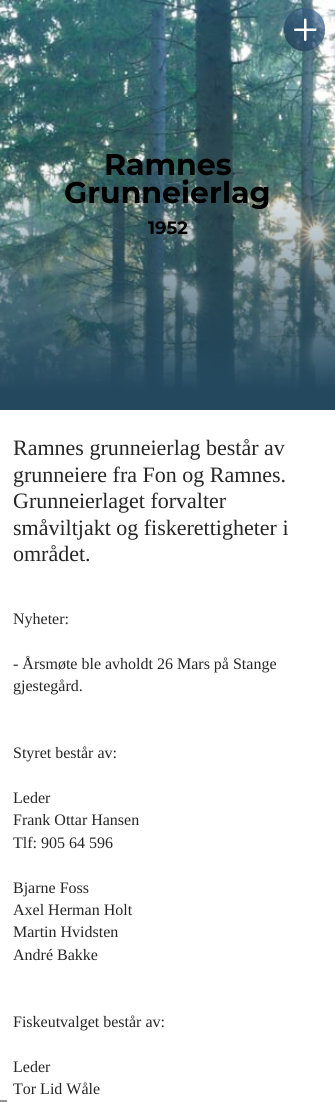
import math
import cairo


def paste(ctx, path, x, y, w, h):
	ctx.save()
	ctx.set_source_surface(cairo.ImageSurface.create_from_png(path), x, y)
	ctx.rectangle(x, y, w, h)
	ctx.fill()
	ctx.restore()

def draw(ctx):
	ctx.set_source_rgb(1, 1, 1)
	ctx.paint()
	paste(ctx, 'media/1.png', 0, 0, 335, 410)
	paste(ctx, 'media/2.png', 294, 18, 23, 23)
	ctx.select_font_face('Montserrat', cairo.FONT_SLANT_NORMAL, cairo.FONT_WEIGHT_BOLD)
	ctx.set_font_size(30)
	ctx.set_source_rgb(0, 0, 0)
	ctx.move_to(104, 175)
	ctx.show_text('Ramnes')
	ctx.move_to(64, 203)
	ctx.show_text('Grunneierlag')
	ctx.set_font_size(18)
	ctx.move_to(148, 234)
	ctx.show_text('1952')
	ctx.select_font_face('Liberation Serif')
	ctx.set_font_size(22)
	ctx.set_source_rgb(0.149, 0.149, 0.149)
	for x, y, s in [
		(13, 455, 'Ramnes grunneierlag består av'),
		(13, 482, 'grunneiere fra Fon og Ramnes.'),
		(13, 508, 'Grunneierlaget forvalter'),
		(13, 535, 'småviltjakt og fiskerettigheter i'),
		(13, 561, 'området.'),
	]:
		ctx.move_to(x, y)
		ctx.show_text(s)
	ctx.set_font_size(16)
	for x, y, s in [
		(13, 624, 'Nyheter:'),
		(13, 669, '- Årsmøte ble avholdt 26 Mars på Stange'),
		(13, 691, 'gjestegård.'),
		(13, 758, 'Styret består av:'),
		(13, 803, 'Leder'),
		(13, 825, 'Frank Ottar Hansen'),
		(13, 848, 'Tlf: 905 64 596'),
		(13, 893, 'Bjarne Foss'),
		(13, 915, 'Axel Herman Holt'),
		(13, 937, 'Martin Hvidsten'),
		(13, 960, 'André Bakke'),
		(13, 1027, 'Fiskeutvalget består av:'),
		(13, 1072, 'Leder'),
		(13, 1094, 'Tor Lid Wåle'),
	]:
		ctx.move_to(x, y)
		ctx.show_text(s)
	ctx.set_source_rgb(0.58, 0.58, 0.58)
	ctx.rectangle(0, 1100, 7, 2)
	ctx.fill()


surface = cairo.ImageSurface(cairo.FORMAT_RGB24, 335, 1102)
ctx = cairo.Context(surface)
options = cairo.FontOptions()
options.set_hint_metrics(cairo.HINT_METRICS_OFF)
options.set_hint_style(cairo.HINT_STYLE_NONE)
ctx.set_font_options(options)
ctx.set_miter_limit(4)
draw(ctx)
surface.write_to_png('image.png')
